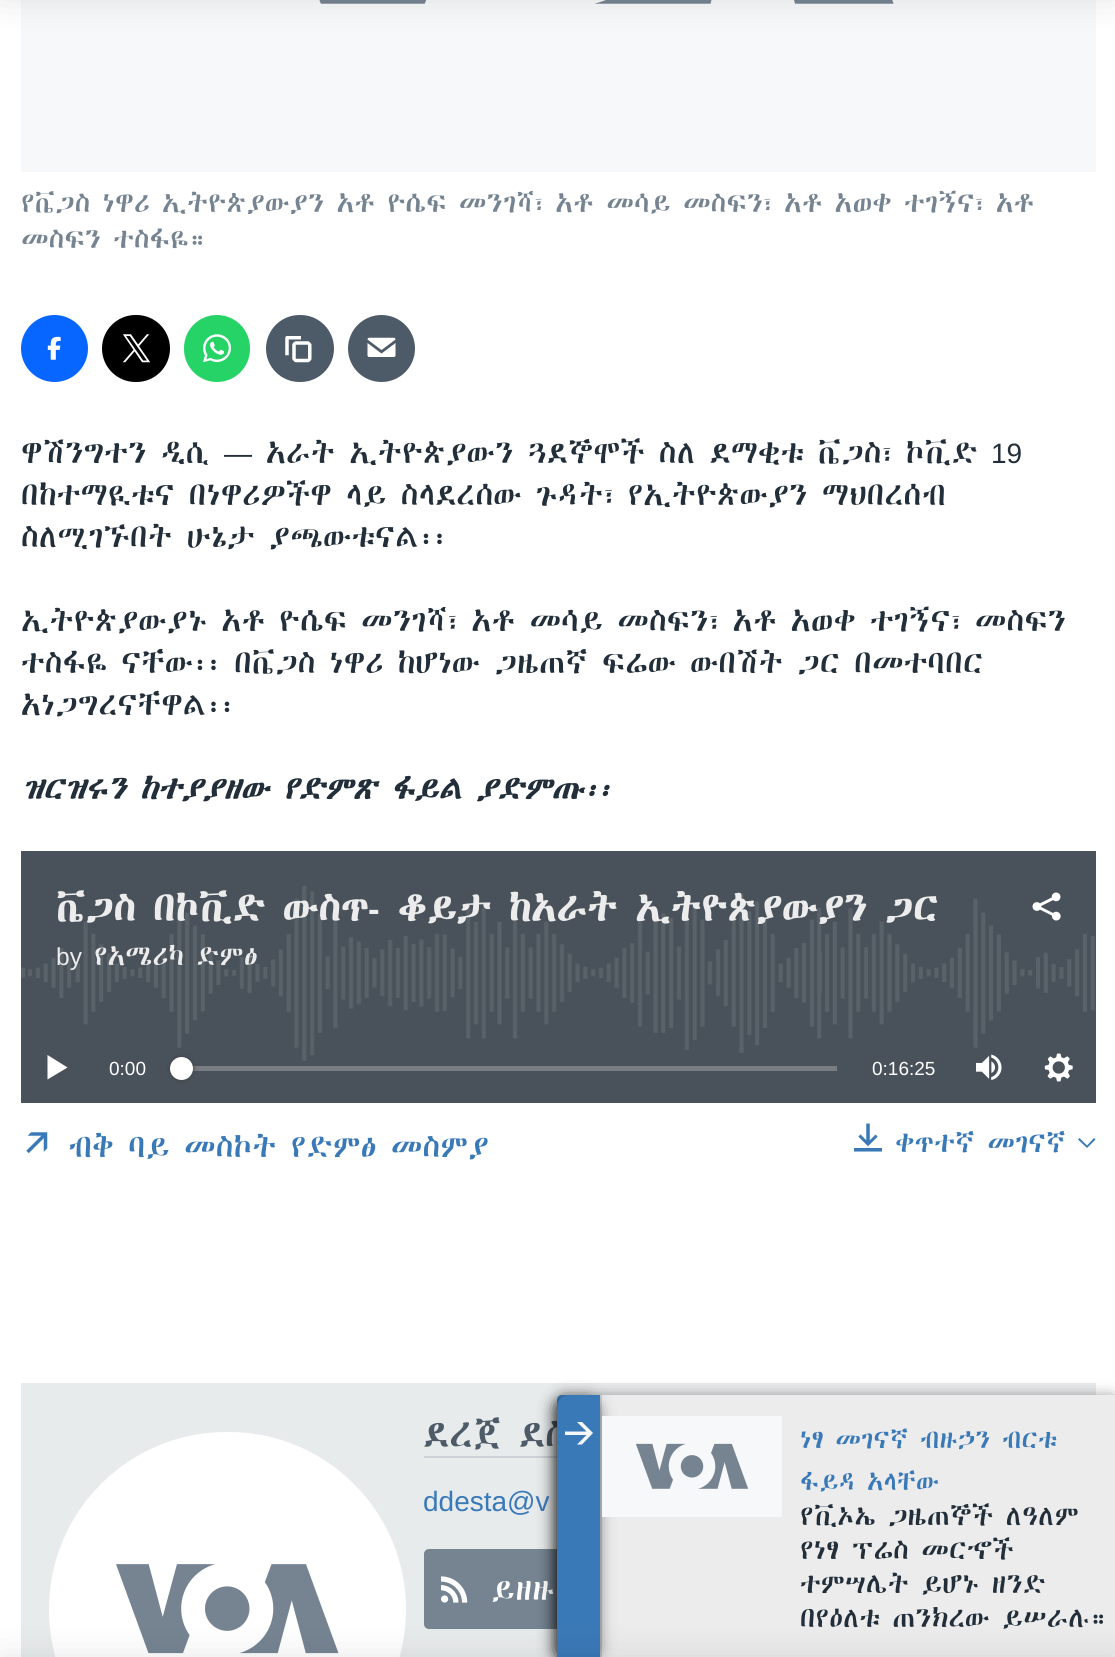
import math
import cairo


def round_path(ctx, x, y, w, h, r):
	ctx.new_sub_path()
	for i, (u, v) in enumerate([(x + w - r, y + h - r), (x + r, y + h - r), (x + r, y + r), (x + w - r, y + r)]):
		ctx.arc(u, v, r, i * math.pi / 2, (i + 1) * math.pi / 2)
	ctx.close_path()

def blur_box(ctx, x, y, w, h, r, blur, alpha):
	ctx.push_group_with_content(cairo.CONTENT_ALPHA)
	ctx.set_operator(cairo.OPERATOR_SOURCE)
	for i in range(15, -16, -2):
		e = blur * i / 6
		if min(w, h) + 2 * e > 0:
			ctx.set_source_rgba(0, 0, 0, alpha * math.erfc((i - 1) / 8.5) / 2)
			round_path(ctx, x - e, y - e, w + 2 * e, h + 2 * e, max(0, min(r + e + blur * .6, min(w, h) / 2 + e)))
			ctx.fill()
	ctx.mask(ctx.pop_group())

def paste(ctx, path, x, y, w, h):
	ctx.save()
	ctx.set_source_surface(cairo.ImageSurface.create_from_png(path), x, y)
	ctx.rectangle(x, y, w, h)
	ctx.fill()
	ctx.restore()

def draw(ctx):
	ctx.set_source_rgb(1, 1, 1)
	ctx.paint()
	ctx.set_source_rgb(0.965, 0.969, 0.973)
	ctx.rectangle(21, 0, 1075, 172)
	ctx.fill()
	paste(ctx, 'media/1.png', 319, 0, 575, 4)
	ctx.set_source_rgb(0, 0, 0)
	blur_box(ctx, 0, -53, 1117, 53, 0, 17.5, 0.1)
	ctx.set_source_rgb(0.91, 0.918, 0.925)
	ctx.rectangle(21, 1383, 1075, 274)
	ctx.fill()
	ctx.set_source_rgb(1, 1, 1)
	round_path(ctx, 49, 1432, 357, 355, 177.5)
	ctx.fill()
	paste(ctx, 'media/13.png', 116, 1564, 223, 90)
	ctx.set_source_rgb(0.463, 0.518, 0.573)
	round_path(ctx, 424, 1549, 148, 80, 5)
	ctx.fill()
	ctx.select_font_face('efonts')
	ctx.set_font_size(35)
	ctx.set_source_rgb(0.302, 0.353, 0.404)
	ctx.move_to(423, 1447)
	ctx.show_text('ደረጀ ደስ')
	ctx.set_source_rgb(0.796, 0.82, 0.839)
	ctx.rectangle(424, 1456, 133, 2)
	ctx.fill()
	ctx.set_source_rgb(0, 0, 0)
	blur_box(ctx, 560, 1402, 553, 255, 2, 9, 0.85)
	ctx.set_source_rgb(0.227, 0.475, 0.718)
	ctx.new_path()
	ctx.move_to(562, 1395)
	ctx.line_to(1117, 1395)
	ctx.line_to(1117, 1657)
	ctx.line_to(557, 1657)
	ctx.line_to(557, 1400)
	ctx.curve_to(557, 1397, 559, 1395, 562, 1395)
	ctx.close_path()
	ctx.fill()
	ctx.set_source_rgb(0.922, 0.922, 0.922)
	ctx.rectangle(602, 1395, 513, 262)
	ctx.fill()
	ctx.set_source_rgb(0.796, 0.82, 0.839)
	ctx.rectangle(600, 1395, 2, 262)
	ctx.fill()
	ctx.set_source_rgb(0, 0, 0)
	blur_box(ctx, 0, 1657, 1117, 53, 0, 17.5, 0.1)
	ctx.set_font_size(24.5)
	ctx.set_source_rgb(0.463, 0.518, 0.573)
	ctx.move_to(21, 212)
	ctx.show_text('የቬጋስ ነዋሪ ኢትዮጵያውያን አቶ ዮሴፍ መንገሻ፣ አቶ መሳይ መስፍን፣ አቶ አወቀ ተገኝና፣ አቶ')
	ctx.move_to(21, 248)
	ctx.show_text('መስፍን ተስፋዬ።')
	ctx.set_source_rgb(0.031, 0.4, 1)
	ctx.new_path()
	ctx.arc(54.5, 348.5, 33.5, 0, 2 * math.pi)
	ctx.fill()
	paste(ctx, 'media/2.png', 47, 336, 14, 24)
	ctx.set_source_rgb(0, 0, 0)
	round_path(ctx, 102, 315, 68, 67, 33.5)
	ctx.fill()
	paste(ctx, 'media/3.png', 122, 334, 29, 29)
	ctx.set_source_rgb(0.145, 0.827, 0.4)
	round_path(ctx, 184, 315, 66, 67, 33)
	ctx.fill()
	paste(ctx, 'media/4.png', 203, 334, 28, 29)
	ctx.set_source_rgb(0.302, 0.353, 0.404)
	round_path(ctx, 266, 315, 68, 67, 33.5)
	ctx.fill()
	paste(ctx, 'media/5.png', 285, 336, 27, 27)
	ctx.arc(381.5, 348.5, 33.5, 0, 2 * math.pi)
	ctx.fill()
	paste(ctx, 'media/6.png', 367, 337, 29, 20)
	ctx.set_font_size(28)
	ctx.set_source_rgb(0.133, 0.184, 0.227)
	ctx.move_to(266, 463)
	ctx.show_text('አራት ኢትዮጵያውን ጓደኞሞች ስለ ደማቂቱ ቬጋስ፣ ኮቪድ')
	ctx.select_font_face('Liberation Sans')
	ctx.move_to(991, 463)
	ctx.show_text('19')
	ctx.select_font_face('efonts')
	for x, y, s in [
		(21, 505, 'በከተማዪቱና በነዋሪዎችዋ ላይ ስላደረሰው ጉዳት፣ የኢትዮጵውያን ማህበረሰብ'),
		(21, 547, 'ስለሚገኙበት ሁኔታ ያጫውቱናል፡፡'),
		(21, 463, 'ዋሽንግተን ዲሲ'),
	]:
		ctx.move_to(x, y)
		ctx.show_text(s)
	ctx.select_font_face('Liberation Sans')
	ctx.move_to(224, 463)
	ctx.show_text('—')
	ctx.select_font_face('efonts')
	for x, y, s in [
		(21, 631, 'ኢትዮጵያውያኑ አቶ ዮሴፍ መንገሻ፣ አቶ መሳይ መስፍን፣ አቶ አወቀ ተገኝና፣ መስፍን'),
		(21, 673, 'ተስፋዬ ናቸው፡፡ በቬጋስ ነዋሪ ከሆነው ጋዜጠኛ ፍሬው ውበሽት ጋር በመተባበር'),
		(21, 715, 'አነጋግረናቸዋል፡፡'),
	]:
		ctx.move_to(x, y)
		ctx.show_text(s)
	ctx.select_font_face('efonts', cairo.FONT_SLANT_ITALIC, cairo.FONT_WEIGHT_BOLD)
	ctx.move_to(21, 799)
	ctx.show_text('ዝርዝሩን ከተያያዘው የድምጽ ፋይል ያድምጡ፡፡')
	ctx.set_source_rgb(0.286, 0.322, 0.353)
	ctx.rectangle(21, 851, 1075, 252)
	ctx.fill()
	paste(ctx, 'media/7.png', 21, 886, 1074, 175)
	ctx.select_font_face('efonts', cairo.FONT_SLANT_NORMAL, cairo.FONT_WEIGHT_BOLD)
	ctx.set_font_size(35)
	ctx.set_source_rgb(0.922, 0.922, 0.922)
	ctx.move_to(56, 921)
	ctx.show_text('ቬጋስ በኮቪድ ውስጥ')
	ctx.select_font_face('Liberation Sans', cairo.FONT_SLANT_NORMAL, cairo.FONT_WEIGHT_BOLD)
	ctx.move_to(368, 921)
	ctx.show_text('-')
	ctx.select_font_face('efonts', cairo.FONT_SLANT_NORMAL, cairo.FONT_WEIGHT_BOLD)
	ctx.move_to(398, 921)
	ctx.show_text('ቆይታ ከአራት ኢትዮጵያውያን ጋር')
	ctx.select_font_face('Liberation Sans')
	ctx.set_font_size(24.5)
	ctx.move_to(56, 965)
	ctx.show_text('by')
	ctx.select_font_face('efonts')
	ctx.move_to(94, 965)
	ctx.show_text('የአሜሪካ ድምፅ')
	paste(ctx, 'media/8.png', 1032, 892, 29, 29)
	ctx.set_source_rgb(1, 1, 1)
	ctx.new_path()
	ctx.move_to(47.5, 1079.5)
	ctx.line_to(67.5, 1067.5)
	ctx.line_to(47.5, 1055)
	ctx.close_path()
	ctx.fill()
	ctx.select_font_face('Liberation Sans')
	ctx.set_font_size(19)
	ctx.move_to(109, 1075)
	ctx.show_text('0:00')
	ctx.set_source_rgb(0.467, 0.49, 0.514)
	ctx.rectangle(192, 1066, 645, 5)
	ctx.fill()
	ctx.set_source_rgb(0.255, 0.255, 0.267)
	blur_box(ctx, 170, 1057, 23, 23, 11.5, 2.5, 1)
	ctx.set_source_rgb(1, 1, 1)
	ctx.arc(181.5, 1068.5, 11.5, 0, 2 * math.pi)
	ctx.fill()
	ctx.move_to(872, 1075)
	ctx.show_text('0:16:25')
	paste(ctx, 'media/9.png', 976, 1054, 26, 26)
	paste(ctx, 'media/10.png', 1044, 1053, 29, 29)
	paste(ctx, 'media/11.png', 26, 1132, 22, 22)
	ctx.select_font_face('efonts')
	ctx.set_font_size(28)
	ctx.set_source_rgb(0.227, 0.475, 0.718)
	ctx.move_to(68, 1157)
	ctx.show_text('ብቅ ባይ መስኮት የድምፅ መስምያ')
	paste(ctx, 'media/12.png', 854, 1123, 28, 29)
	ctx.set_font_size(24.5)
	ctx.move_to(895, 1152)
	ctx.show_text('ቀጥተኛ መገናኛ')
	ctx.new_path()
	ctx.move_to(1078, 1139.5)
	ctx.line_to(1087, 1148)
	ctx.line_to(1095.5, 1139.5)
	ctx.line_to(1094, 1138)
	ctx.line_to(1087, 1145.5)
	ctx.line_to(1079.5, 1138)
	ctx.close_path()
	ctx.fill()
	ctx.select_font_face('Liberation Sans')
	ctx.set_font_size(28)
	ctx.move_to(423, 1511)
	ctx.show_text('ddesta@v')
	paste(ctx, 'media/14.png', 441, 1576, 27, 27)
	ctx.select_font_face('efonts')
	ctx.set_source_rgb(1, 1, 1)
	ctx.move_to(491, 1600)
	ctx.show_text('ይዘዙ')
	ctx.save()
	ctx.set_fill_rule(cairo.FILL_RULE_EVEN_ODD)
	ctx.new_path()
	ctx.move_to(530, 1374)
	ctx.line_to(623, 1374)
	ctx.line_to(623, 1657)
	ctx.line_to(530, 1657)
	ctx.close_path()
	ctx.move_to(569, 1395)
	ctx.line_to(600, 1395)
	ctx.line_to(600, 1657)
	ctx.line_to(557, 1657)
	ctx.line_to(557, 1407)
	ctx.curve_to(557, 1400.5, 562.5, 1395, 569, 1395)
	ctx.close_path()
	ctx.clip()
	ctx.set_source_rgb(0, 0, 0)
	blur_box(ctx, 558, 1402, 37, 255, 9, 9, 0.85)
	ctx.restore()
	ctx.set_source_rgb(0.965, 0.969, 0.973)
	ctx.new_path()
	ctx.move_to(593, 1433)
	ctx.line_to(582, 1422)
	ctx.line_to(577, 1422)
	ctx.line_to(586.5, 1431.5)
	ctx.line_to(565, 1431.5)
	ctx.line_to(565, 1435)
	ctx.line_to(586.5, 1435)
	ctx.line_to(577, 1444.5)
	ctx.line_to(582, 1444.5)
	ctx.close_path()
	ctx.fill()
	ctx.rectangle(602, 1416, 180, 101)
	ctx.fill()
	paste(ctx, 'media/15.png', 636, 1443, 113, 46)
	ctx.set_font_size(22.75)
	ctx.set_source_rgb(0.227, 0.475, 0.718)
	ctx.move_to(800, 1448)
	ctx.show_text('ነፃ መገናኛ ብዙኃን ብርቱ')
	ctx.move_to(800, 1490)
	ctx.show_text('ፋይዳ አላቸው')
	ctx.set_font_size(24.5)
	ctx.set_source_rgb(0.133, 0.184, 0.227)
	for x, y, s in [
		(800, 1525, 'የቪኦኤ ጋዜጠኞች ለዓለም'),
		(800, 1559, 'የነፃ ፕሬስ መርኆች'),
		(800, 1593, 'ተምሣሌት ይሆኑ ዘንድ'),
		(800, 1627, 'በየዕለቱ ጠንክረው ይሠራሉ።'),
	]:
		ctx.move_to(x, y)
		ctx.show_text(s)


surface = cairo.ImageSurface(cairo.FORMAT_RGB24, 1115, 1657)
ctx = cairo.Context(surface)
options = cairo.FontOptions()
options.set_hint_metrics(cairo.HINT_METRICS_OFF)
options.set_hint_style(cairo.HINT_STYLE_NONE)
ctx.set_font_options(options)
ctx.set_miter_limit(4)
draw(ctx)
surface.write_to_png('image.png')
